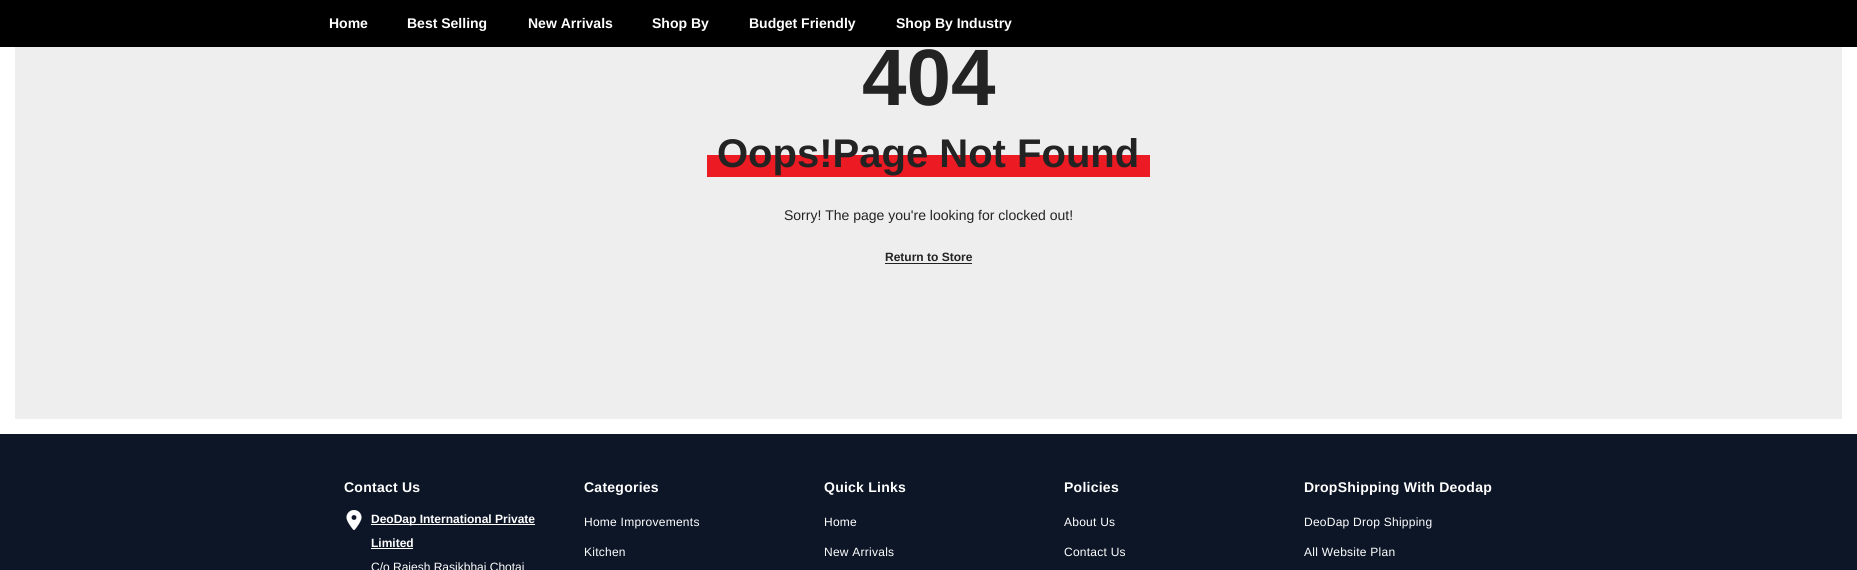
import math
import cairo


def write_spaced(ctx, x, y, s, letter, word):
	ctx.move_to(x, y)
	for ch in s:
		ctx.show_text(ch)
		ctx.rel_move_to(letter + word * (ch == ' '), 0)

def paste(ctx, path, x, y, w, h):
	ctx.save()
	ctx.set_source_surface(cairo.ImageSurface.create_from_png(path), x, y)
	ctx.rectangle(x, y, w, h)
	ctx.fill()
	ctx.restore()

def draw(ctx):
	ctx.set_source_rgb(1, 1, 1)
	ctx.paint()
	ctx.set_source_rgb(0, 0, 0)
	ctx.rectangle(0, 0, 1857, 47)
	ctx.fill()
	ctx.select_font_face('Arimo', cairo.FONT_SLANT_NORMAL, cairo.FONT_WEIGHT_BOLD)
	ctx.set_font_size(14)
	ctx.set_source_rgb(1, 1, 1)
	for x, y, s in [
		(329, 28, 'Home'),
		(407, 28, 'Best Selling'),
		(528, 28, 'New Arrivals'),
		(652, 28, 'Shop By'),
		(749, 28, 'Budget Friendly'),
		(896, 28, 'Shop By Industry'),
	]:
		ctx.move_to(x, y)
		ctx.show_text(s)
	ctx.set_source_rgb(0.933, 0.933, 0.933)
	ctx.rectangle(15, 47, 1827, 372)
	ctx.fill()
	ctx.set_font_size(80)
	ctx.set_source_rgb(0.137, 0.137, 0.137)
	ctx.move_to(862, 105)
	ctx.show_text('404')
	ctx.set_source_rgb(0.925, 0.102, 0.137)
	ctx.rectangle(707, 155, 443, 22)
	ctx.fill()
	ctx.set_font_size(40)
	ctx.set_source_rgb(0.137, 0.137, 0.137)
	ctx.move_to(717, 167)
	ctx.show_text('Oops!Page Not Found')
	ctx.select_font_face('Arimo')
	ctx.set_font_size(14)
	ctx.move_to(784, 220)
	ctx.show_text('Sorry! The page you\'re looking for clocked out!')
	ctx.select_font_face('Arimo', cairo.FONT_SLANT_NORMAL, cairo.FONT_WEIGHT_BOLD)
	ctx.set_font_size(12)
	ctx.move_to(885, 261)
	ctx.show_text('Return to Store')
	ctx.rectangle(885, 263, 87, 1)
	ctx.fill()
	ctx.set_source_rgb(0.051, 0.086, 0.153)
	ctx.rectangle(0, 434, 1857, 136)
	ctx.fill()
	ctx.set_font_size(14)
	ctx.set_source_rgb(1, 1, 1)
	write_spaced(ctx, 344, 492, 'Contact Us', 0.25, 0)
	paste(ctx, 'media/1.png', 346, 510, 16, 20)
	ctx.rectangle(371, 524, 164, 1)
	ctx.fill()
	ctx.set_font_size(12)
	ctx.move_to(371, 523)
	ctx.show_text('DeoDap International Private')
	ctx.move_to(371, 547)
	ctx.show_text('Limited')
	ctx.rectangle(371, 548, 42, 1)
	ctx.fill()
	ctx.select_font_face('Arimo')
	ctx.move_to(371, 571)
	ctx.show_text('C/o Rajesh Rasikbhai Chotai')
	ctx.select_font_face('Arimo', cairo.FONT_SLANT_NORMAL, cairo.FONT_WEIGHT_BOLD)
	ctx.set_font_size(14)
	write_spaced(ctx, 584, 492, 'Categories', 0.25, 0)
	ctx.select_font_face('Arimo')
	ctx.set_font_size(12)
	write_spaced(ctx, 584, 526, 'Home Improvements', 0.25, 0)
	write_spaced(ctx, 584, 556, 'Kitchen', 0.25, 0)
	ctx.select_font_face('Arimo', cairo.FONT_SLANT_NORMAL, cairo.FONT_WEIGHT_BOLD)
	ctx.set_font_size(14)
	write_spaced(ctx, 824, 492, 'Quick Links', 0.25, 0)
	ctx.select_font_face('Arimo')
	ctx.set_font_size(12)
	write_spaced(ctx, 824, 526, 'Home', 0.25, 0)
	write_spaced(ctx, 824, 556, 'New Arrivals', 0.25, 0)
	ctx.select_font_face('Arimo', cairo.FONT_SLANT_NORMAL, cairo.FONT_WEIGHT_BOLD)
	ctx.set_font_size(14)
	write_spaced(ctx, 1064, 492, 'Policies', 0.25, 0)
	ctx.select_font_face('Arimo')
	ctx.set_font_size(12)
	write_spaced(ctx, 1064, 526, 'About Us', 0.25, 0)
	write_spaced(ctx, 1064, 556, 'Contact Us', 0.25, 0)
	ctx.select_font_face('Arimo', cairo.FONT_SLANT_NORMAL, cairo.FONT_WEIGHT_BOLD)
	ctx.set_font_size(14)
	write_spaced(ctx, 1304, 492, 'DropShipping With Deodap', 0.25, 0)
	ctx.select_font_face('Arimo')
	ctx.set_font_size(12)
	write_spaced(ctx, 1304, 526, 'DeoDap Drop Shipping', 0.25, 0)
	write_spaced(ctx, 1304, 556, 'All Website Plan', 0.25, 0)


surface = cairo.ImageSurface(cairo.FORMAT_RGB24, 1857, 570)
ctx = cairo.Context(surface)
options = cairo.FontOptions()
options.set_hint_metrics(cairo.HINT_METRICS_OFF)
options.set_hint_style(cairo.HINT_STYLE_NONE)
ctx.set_font_options(options)
ctx.set_miter_limit(4)
draw(ctx)
surface.write_to_png('image.png')
